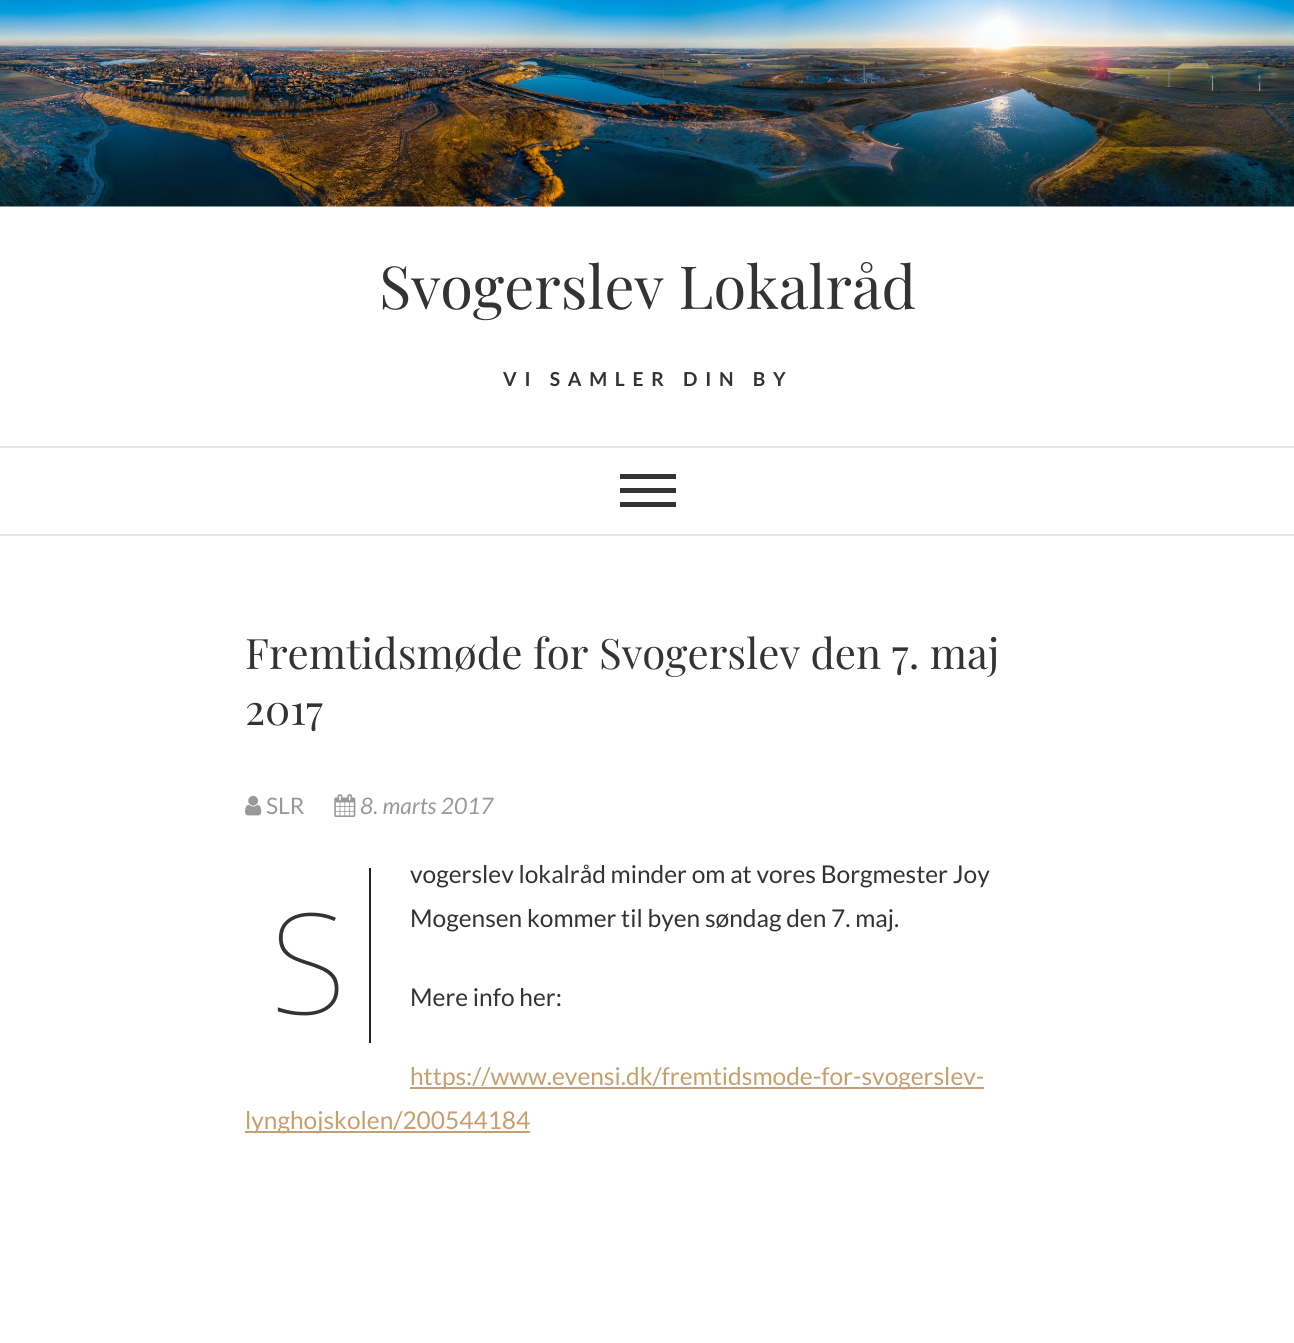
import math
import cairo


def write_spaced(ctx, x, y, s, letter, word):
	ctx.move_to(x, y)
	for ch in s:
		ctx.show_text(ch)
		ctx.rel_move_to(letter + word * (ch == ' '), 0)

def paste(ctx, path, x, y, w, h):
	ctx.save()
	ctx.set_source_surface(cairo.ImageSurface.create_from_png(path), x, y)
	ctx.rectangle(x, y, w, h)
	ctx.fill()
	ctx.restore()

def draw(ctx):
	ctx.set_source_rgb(1, 1, 1)
	ctx.paint()
	paste(ctx, 'media/1.png', 0, 0, 1294, 207)
	ctx.set_source_rgb(0.902, 0.902, 0.902)
	ctx.rectangle(0, 446, 1294, 2)
	ctx.fill()
	ctx.select_font_face('Playfair Display')
	ctx.set_font_size(59.5)
	ctx.set_source_rgb(0.2, 0.2, 0.2)
	ctx.move_to(379, 309)
	ctx.show_text('Svogerslev Lokalråd')
	ctx.select_font_face('Lato', cairo.FONT_SLANT_NORMAL, cairo.FONT_WEIGHT_BOLD)
	ctx.set_font_size(19.25)
	write_spaced(ctx, 503, 386, 'VI SAMLER DIN BY', 7.75, 0)
	ctx.set_source_rgb(0.902, 0.902, 0.902)
	ctx.rectangle(0, 534, 1294, 2)
	ctx.fill()
	ctx.set_source_rgb(0.2, 0.2, 0.2)
	ctx.rectangle(620, 474, 56, 5)
	ctx.rectangle(620, 488, 56, 5)
	ctx.rectangle(620, 502, 56, 5)
	ctx.fill()
	ctx.select_font_face('Playfair Display')
	ctx.set_font_size(42)
	ctx.move_to(245, 669)
	ctx.show_text('Fremtidsmøde for Svogerslev den 7. maj')
	ctx.move_to(245, 725)
	ctx.show_text('2017')
	paste(ctx, 'media/2.png', 245, 795, 17, 21)
	ctx.select_font_face('Lato')
	ctx.set_font_size(22.75)
	ctx.set_source_rgb(0.6, 0.6, 0.6)
	ctx.move_to(266, 814)
	ctx.show_text('SLR')
	paste(ctx, 'media/3.png', 334, 794, 22, 23)
	ctx.select_font_face('Lato', cairo.FONT_SLANT_ITALIC)
	ctx.move_to(360, 814)
	ctx.show_text('8. marts 2017')
	ctx.select_font_face('Lato')
	ctx.set_font_size(24.5)
	ctx.set_source_rgb(0.2, 0.2, 0.2)
	ctx.move_to(410, 883)
	ctx.show_text('vogerslev lokalråd minder om at vores Borgmester Joy')
	ctx.set_source_rgb(0.133, 0.133, 0.133)
	ctx.rectangle(369, 868, 2, 175)
	ctx.fill()
	ctx.select_font_face('Noto Sans Thin')
	ctx.set_font_size(140)
	ctx.set_source_rgb(0.2, 0.2, 0.2)
	ctx.move_to(270, 1014)
	ctx.show_text('S')
	ctx.select_font_face('Lato')
	ctx.set_font_size(24.5)
	ctx.move_to(410, 927)
	ctx.show_text('Mogensen kommer til byen søndag den 7. maj.')
	ctx.move_to(410, 1006)
	ctx.show_text('Mere info her:')
	ctx.set_source_rgb(0.776, 0.624, 0.439)
	ctx.rectangle(410, 1087, 574, 2)
	ctx.fill()
	ctx.move_to(410, 1085)
	ctx.show_text('https://www.evensi.dk/fremtidsmode-for-svogerslev-')
	ctx.rectangle(245, 1131, 285, 2)
	ctx.fill()
	ctx.move_to(245, 1129)
	ctx.show_text('lynghojskolen/200544184')


surface = cairo.ImageSurface(cairo.FORMAT_RGB24, 1294, 1343)
ctx = cairo.Context(surface)
options = cairo.FontOptions()
options.set_hint_metrics(cairo.HINT_METRICS_OFF)
options.set_hint_style(cairo.HINT_STYLE_NONE)
ctx.set_font_options(options)
ctx.set_miter_limit(4)
draw(ctx)
surface.write_to_png('image.png')
